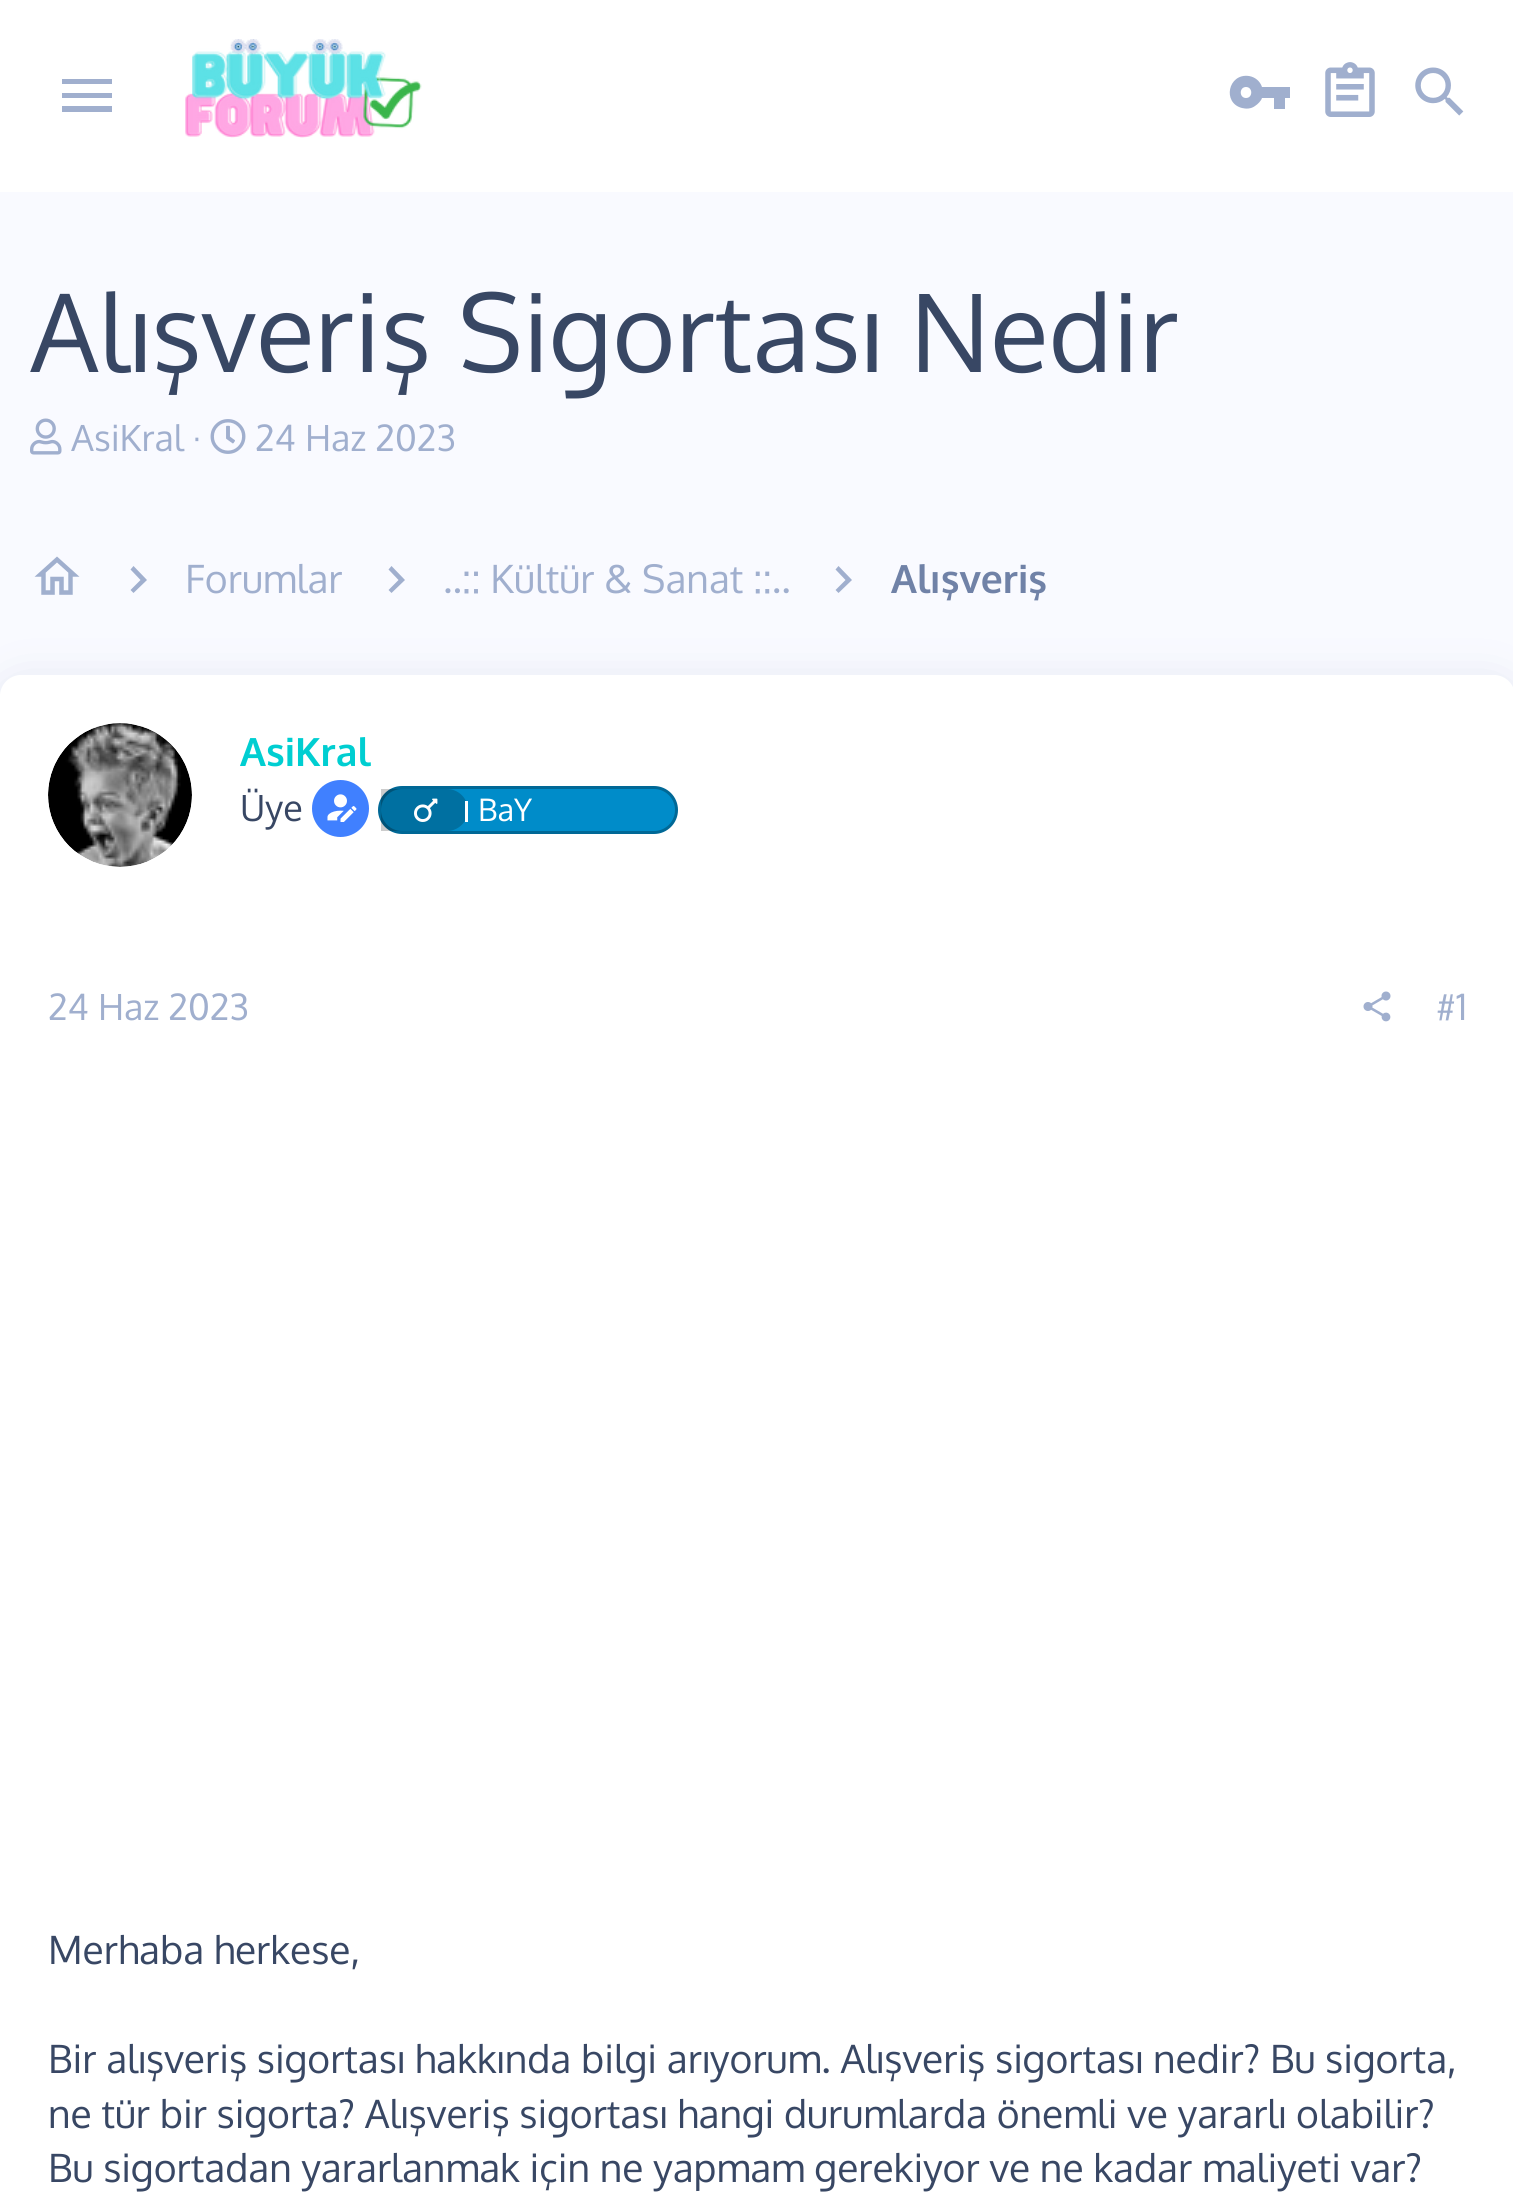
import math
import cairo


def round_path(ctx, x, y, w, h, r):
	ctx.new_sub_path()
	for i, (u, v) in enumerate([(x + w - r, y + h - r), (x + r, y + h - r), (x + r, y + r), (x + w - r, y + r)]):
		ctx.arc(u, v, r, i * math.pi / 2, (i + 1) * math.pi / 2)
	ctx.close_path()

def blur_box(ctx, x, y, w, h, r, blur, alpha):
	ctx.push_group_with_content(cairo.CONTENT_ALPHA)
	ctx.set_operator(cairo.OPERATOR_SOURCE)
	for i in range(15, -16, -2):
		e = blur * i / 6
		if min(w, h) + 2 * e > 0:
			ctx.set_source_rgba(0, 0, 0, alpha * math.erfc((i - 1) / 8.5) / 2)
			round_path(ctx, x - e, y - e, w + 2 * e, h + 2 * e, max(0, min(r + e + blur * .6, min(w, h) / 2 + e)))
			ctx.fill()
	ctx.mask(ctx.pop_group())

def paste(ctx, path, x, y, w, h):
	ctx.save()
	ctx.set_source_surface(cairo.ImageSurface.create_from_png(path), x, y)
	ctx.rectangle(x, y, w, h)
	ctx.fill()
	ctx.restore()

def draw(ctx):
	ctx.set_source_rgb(0.973, 0.98, 1)
	ctx.paint()
	ctx.set_source_rgb(1, 1, 1)
	ctx.rectangle(0, 0, 1513, 192)
	ctx.fill()
	ctx.set_source_rgb(0.627, 0.686, 0.808)
	ctx.new_path()
	ctx.move_to(62, 79)
	ctx.line_to(112, 79)
	ctx.line_to(112, 84)
	ctx.line_to(62, 84)
	ctx.close_path()
	ctx.move_to(62, 93)
	ctx.line_to(112, 93)
	ctx.line_to(112, 98)
	ctx.line_to(62, 98)
	ctx.close_path()
	ctx.move_to(62, 106)
	ctx.line_to(112, 106)
	ctx.line_to(112, 112)
	ctx.line_to(62, 112)
	ctx.close_path()
	ctx.fill()
	paste(ctx, 'media/1.png', 185, 39, 237, 99)
	ctx.new_path()
	ctx.move_to(1246, 98)
	ctx.curve_to(1239, 98, 1239, 87, 1246, 87)
	ctx.curve_to(1253, 87, 1253, 98, 1246, 98)
	ctx.close_path()
	ctx.move_to(1262, 87)
	ctx.curve_to(1260, 81, 1255, 77, 1249, 76)
	ctx.curve_to(1228, 73, 1222, 103, 1242, 108)
	ctx.curve_to(1246, 109, 1251, 109, 1255, 106)
	ctx.curve_to(1258, 104, 1261, 101, 1262, 98)
	ctx.line_to(1274, 98)
	ctx.line_to(1274, 109)
	ctx.line_to(1285, 109)
	ctx.line_to(1285, 98)
	ctx.line_to(1290, 98)
	ctx.line_to(1290, 87)
	ctx.close_path()
	ctx.fill()
	paste(ctx, 'media/2.png', 1325, 62, 50, 55)
	paste(ctx, 'media/3.png', 1415, 67, 49, 49)
	ctx.select_font_face('Oxygen')
	ctx.set_font_size(108)
	ctx.set_source_rgb(0.22, 0.278, 0.392)
	ctx.move_to(30, 372)
	ctx.show_text('Alışveriş Sigortası Nedir')
	paste(ctx, 'media/4.png', 30, 418, 32, 37)
	ctx.set_font_size(36)
	ctx.set_source_rgb(0.627, 0.686, 0.808)
	ctx.move_to(71, 451)
	ctx.show_text('AsiKral ·')
	paste(ctx, 'media/5.png', 210, 419, 36, 35)
	ctx.move_to(255, 451)
	ctx.show_text('24 Haz 2023')
	paste(ctx, 'media/6.png', 34, 556, 46, 39)
	ctx.new_path()
	ctx.move_to(130.5, 590)
	ctx.line_to(140.5, 580)
	ctx.line_to(130.5, 569.5)
	ctx.line_to(133.5, 566)
	ctx.line_to(147, 580)
	ctx.line_to(133.5, 593)
	ctx.close_path()
	ctx.fill()
	ctx.set_font_size(39)
	ctx.move_to(185, 593)
	ctx.show_text('Forumlar')
	ctx.new_path()
	ctx.move_to(388.5, 590)
	ctx.line_to(398.5, 580)
	ctx.line_to(388.5, 569.5)
	ctx.line_to(391.5, 566)
	ctx.line_to(405, 580)
	ctx.line_to(391.5, 593)
	ctx.close_path()
	ctx.fill()
	ctx.move_to(443, 593)
	ctx.show_text('..:: Kültür & Sanat ::..')
	ctx.new_path()
	ctx.move_to(835.5, 590)
	ctx.line_to(845.5, 580)
	ctx.line_to(835.5, 569.5)
	ctx.line_to(838.5, 566)
	ctx.line_to(852, 580)
	ctx.line_to(838.5, 593)
	ctx.close_path()
	ctx.fill()
	ctx.select_font_face('Oxygen', cairo.FONT_SLANT_NORMAL, cairo.FONT_WEIGHT_BOLD)
	ctx.set_source_rgb(0.439, 0.51, 0.655)
	ctx.move_to(891, 593)
	ctx.show_text('Alışveriş')
	ctx.set_source_rgb(0.345, 0.416, 0.6)
	blur_box(ctx, 0, 687, 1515, 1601, 24, 22.5, 0.2)
	ctx.set_source_rgb(1, 1, 1)
	ctx.new_path()
	ctx.move_to(24, 675)
	ctx.line_to(1491, 675)
	ctx.curve_to(1504.5, 675, 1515, 685.5, 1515, 699)
	ctx.line_to(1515, 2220)
	ctx.line_to(0, 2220)
	ctx.line_to(0, 699)
	ctx.curve_to(0, 685.5, 10.5, 675, 24, 675)
	ctx.close_path()
	ctx.fill()
	ctx.new_path()
	ctx.move_to(21, 675)
	ctx.line_to(1494, 675)
	ctx.curve_to(1505.5, 675, 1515, 684.5, 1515, 696)
	ctx.line_to(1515, 936)
	ctx.line_to(0, 936)
	ctx.line_to(0, 696)
	ctx.curve_to(0, 684.5, 9.5, 675, 21, 675)
	ctx.close_path()
	ctx.fill()
	paste(ctx, 'media/7.png', 48, 723, 144, 144)
	ctx.set_source_rgb(0, 0.808, 0.82)
	ctx.move_to(240, 766)
	ctx.show_text('AsiKral')
	ctx.select_font_face('Oxygen')
	ctx.set_font_size(36)
	ctx.set_source_rgb(0.22, 0.278, 0.392)
	ctx.move_to(240, 821)
	ctx.show_text('Üye')
	ctx.set_source_rgb(0.251, 0.502, 1)
	ctx.new_path()
	ctx.arc(340.5, 808.5, 28.5, 0, 2 * math.pi)
	ctx.fill()
	paste(ctx, 'media/8.png', 327, 794, 30, 28)
	ctx.set_source_rgb(0, 0.549, 0.788)
	round_path(ctx, 379.5, 787.5, 297, 45, 22.5)
	ctx.fill_preserve()
	ctx.set_source_rgb(0, 0.408, 0.588)
	ctx.set_line_width(3)
	ctx.stroke()
	ctx.set_source_rgba(0, 0, 0, 0.2)
	ctx.new_path()
	ctx.move_to(381, 789)
	ctx.line_to(447, 789)
	ctx.curve_to(458.5, 789, 468, 798.5, 468, 810)
	ctx.curve_to(468, 821.5, 458.5, 831, 447, 831)
	ctx.line_to(381, 831)
	ctx.close_path()
	ctx.fill()
	ctx.set_source_rgb(1, 1, 1)
	ctx.rectangle(465, 801, 3, 21)
	ctx.fill()
	paste(ctx, 'media/9.png', 414, 798, 24, 24)
	ctx.set_font_size(31)
	ctx.move_to(478, 821)
	ctx.show_text('BaY')
	ctx.set_font_size(36)
	ctx.set_source_rgb(0.627, 0.686, 0.808)
	ctx.move_to(48, 1020)
	ctx.show_text('24 Haz 2023')
	paste(ctx, 'media/10.png', 1363, 991, 28, 31)
	ctx.move_to(1436, 1020)
	ctx.show_text('#1')
	ctx.set_font_size(39)
	ctx.set_source_rgb(0.22, 0.278, 0.392)
	for x, y, s in [
		(48, 1964, 'Merhaba herkese,'),
		(48, 2073, 'Bir alışveriş sigortası hakkında bilgi arıyorum. Alışveriş sigortası nedir? Bu sigorta,'),
		(48, 2128, 'ne tür bir sigorta? Alışveriş sigortası hangi durumlarda önemli ve yararlı olabilir?'),
		(48, 2182, 'Bu sigortadan yararlanmak için ne yapmam gerekiyor ve ne kadar maliyeti var?'),
	]:
		ctx.move_to(x, y)
		ctx.show_text(s)


surface = cairo.ImageSurface(cairo.FORMAT_RGB24, 1513, 2196)
ctx = cairo.Context(surface)
options = cairo.FontOptions()
options.set_hint_metrics(cairo.HINT_METRICS_OFF)
options.set_hint_style(cairo.HINT_STYLE_NONE)
ctx.set_font_options(options)
ctx.set_miter_limit(4)
draw(ctx)
surface.write_to_png('image.png')
